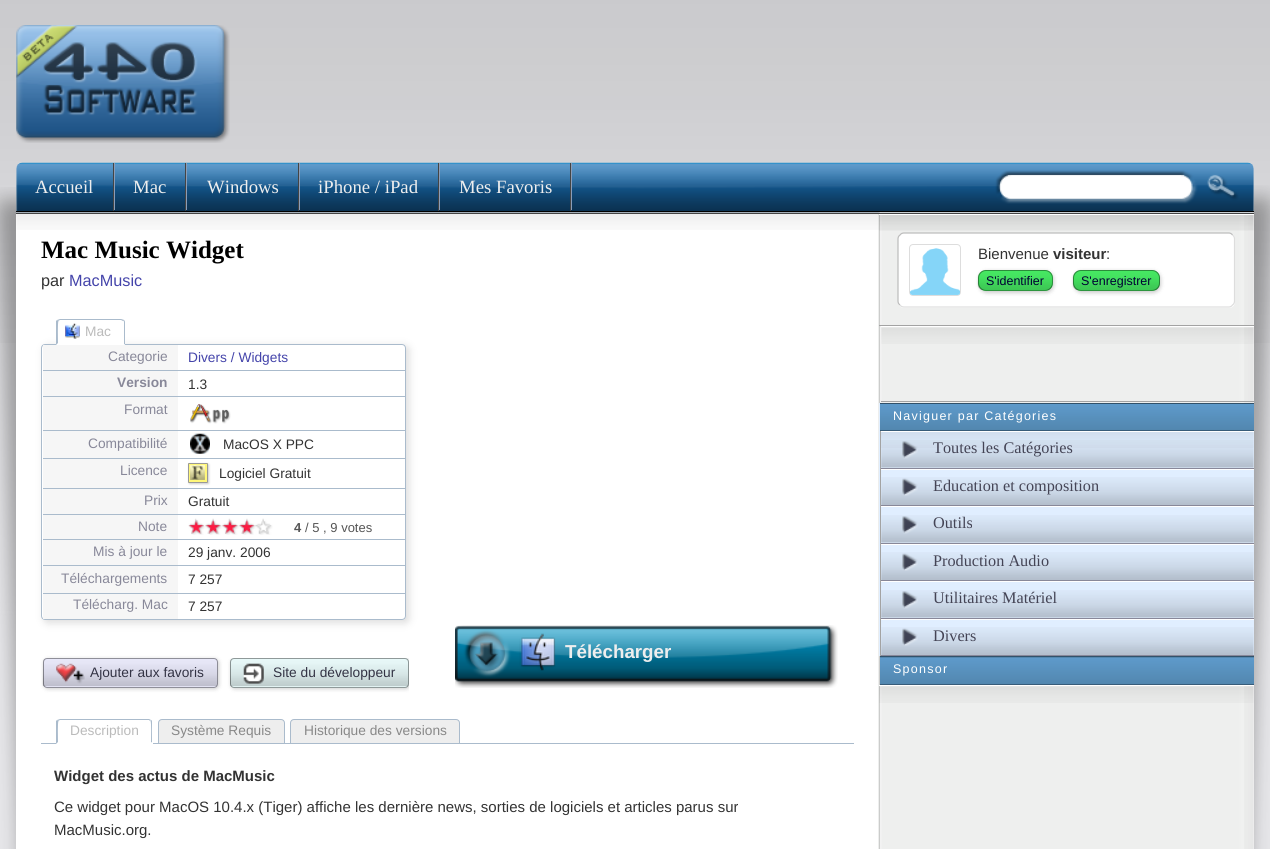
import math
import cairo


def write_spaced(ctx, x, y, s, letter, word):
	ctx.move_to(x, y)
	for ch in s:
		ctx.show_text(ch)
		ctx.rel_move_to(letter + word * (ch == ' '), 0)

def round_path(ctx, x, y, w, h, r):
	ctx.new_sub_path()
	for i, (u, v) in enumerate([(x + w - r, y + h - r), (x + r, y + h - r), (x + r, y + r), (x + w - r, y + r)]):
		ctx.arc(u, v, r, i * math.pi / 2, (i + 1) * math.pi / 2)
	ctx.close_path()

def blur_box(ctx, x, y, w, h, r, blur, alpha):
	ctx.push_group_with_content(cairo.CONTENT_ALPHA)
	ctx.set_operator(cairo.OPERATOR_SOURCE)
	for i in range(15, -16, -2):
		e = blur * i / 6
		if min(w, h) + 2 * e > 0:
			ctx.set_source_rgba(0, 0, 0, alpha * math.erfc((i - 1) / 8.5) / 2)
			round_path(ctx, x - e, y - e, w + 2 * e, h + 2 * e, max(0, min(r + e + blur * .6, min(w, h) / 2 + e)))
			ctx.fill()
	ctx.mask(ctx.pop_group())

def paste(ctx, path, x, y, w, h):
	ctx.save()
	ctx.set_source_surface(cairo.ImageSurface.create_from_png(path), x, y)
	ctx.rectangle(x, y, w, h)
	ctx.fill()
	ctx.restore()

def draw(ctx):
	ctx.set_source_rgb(0.902, 0.902, 0.914)
	ctx.paint()
	paste(ctx, 'media/1.png', 0, 0, 1270, 343)
	paste(ctx, 'media/2.png', 16, 25, 214, 118)
	paste(ctx, 'media/3.png', 0, 187, 17, 662)
	paste(ctx, 'media/4.png', 1253, 185, 17, 664)
	paste(ctx, 'media/5.png', 16, 162, 1238, 51)
	ctx.set_source_rgb(0, 0, 0)
	ctx.rectangle(16, 211, 1238, 1)
	ctx.fill()
	ctx.set_source_rgb(0.267, 0.267, 0.267)
	ctx.rectangle(113, 163, 1, 48)
	ctx.fill()
	ctx.select_font_face('Liberation Serif')
	ctx.set_font_size(18.75)
	ctx.set_source_rgb(0.933, 0.933, 0.933)
	ctx.move_to(35, 193)
	ctx.show_text('Accueil')
	ctx.set_source_rgb(0.541, 0.616, 0.722)
	ctx.rectangle(114, 163, 1, 47)
	ctx.fill()
	ctx.set_source_rgb(0.267, 0.267, 0.267)
	ctx.rectangle(185, 163, 1, 48)
	ctx.fill()
	ctx.set_source_rgb(0.933, 0.933, 0.933)
	ctx.move_to(133, 193)
	ctx.show_text('Mac')
	ctx.set_source_rgb(0.541, 0.616, 0.722)
	ctx.rectangle(186, 163, 1, 47)
	ctx.fill()
	ctx.set_source_rgb(0.267, 0.267, 0.267)
	ctx.rectangle(298, 163, 1, 48)
	ctx.fill()
	ctx.set_source_rgb(0.933, 0.933, 0.933)
	ctx.move_to(207, 193)
	ctx.show_text('Windows')
	ctx.set_source_rgb(0.541, 0.616, 0.722)
	ctx.rectangle(299, 163, 1, 47)
	ctx.fill()
	ctx.set_source_rgb(0.267, 0.267, 0.267)
	ctx.rectangle(438, 163, 1, 48)
	ctx.fill()
	ctx.set_source_rgb(0.933, 0.933, 0.933)
	ctx.move_to(318, 193)
	ctx.show_text('iPhone / iPad')
	ctx.set_source_rgb(0.541, 0.616, 0.722)
	ctx.rectangle(439, 163, 1, 47)
	ctx.fill()
	ctx.set_source_rgb(0.267, 0.267, 0.267)
	ctx.rectangle(570, 163, 1, 48)
	ctx.fill()
	ctx.set_source_rgb(0.933, 0.933, 0.933)
	ctx.move_to(459, 193)
	ctx.show_text('Mes Favoris')
	ctx.set_source_rgb(0.541, 0.616, 0.722)
	ctx.rectangle(571, 163, 1, 47)
	ctx.fill()
	ctx.set_source_rgba(1, 1, 1, 0.5)
	ctx.rectangle(1008, 175, 176, 23)
	ctx.fill()
	ctx.set_source_rgb(1, 1, 1)
	ctx.rectangle(16, 214, 1238, 635)
	ctx.fill()
	paste(ctx, 'media/6.png', 878, 212, 376, 637)
	ctx.set_source_rgb(0.267, 0.267, 0.267)
	ctx.rectangle(16, 213, 1238, 1)
	ctx.fill()
	paste(ctx, 'media/7.png', 16, 214, 1238, 16)
	paste(ctx, 'media/8.png', 1244, 215, 10, 634)
	ctx.select_font_face('Liberation Serif', cairo.FONT_SLANT_NORMAL, cairo.FONT_WEIGHT_BOLD)
	ctx.set_font_size(25)
	ctx.set_source_rgb(0, 0, 0)
	ctx.move_to(41, 258)
	ctx.show_text('Mac Music Widget')
	ctx.select_font_face('Liberation Sans')
	ctx.set_font_size(16.25)
	ctx.set_source_rgb(0.2, 0.2, 0.2)
	ctx.move_to(41, 286)
	ctx.show_text('par')
	ctx.set_source_rgb(0.267, 0.267, 0.667)
	ctx.move_to(69, 286)
	ctx.show_text('MacMusic')
	ctx.save()
	ctx.set_fill_rule(cairo.FILL_RULE_EVEN_ODD)
	ctx.new_path()
	ctx.move_to(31, 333)
	ctx.line_to(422, 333)
	ctx.line_to(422, 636)
	ctx.line_to(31, 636)
	ctx.close_path()
	ctx.move_to(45, 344)
	ctx.line_to(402, 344)
	ctx.curve_to(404, 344, 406, 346, 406, 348)
	ctx.line_to(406, 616)
	ctx.curve_to(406, 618, 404, 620, 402, 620)
	ctx.line_to(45, 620)
	ctx.curve_to(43, 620, 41, 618, 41, 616)
	ctx.line_to(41, 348)
	ctx.curve_to(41, 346, 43, 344, 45, 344)
	ctx.close_path()
	ctx.clip()
	ctx.set_source_rgb(0.867, 0.867, 0.867)
	blur_box(ctx, 44, 346, 365, 277, 4, 4, 1)
	ctx.restore()
	round_path(ctx, 41.5, 344.5, 364, 275, 3.5)
	ctx.set_source_rgb(0.667, 0.733, 0.8)
	ctx.set_line_width(1)
	ctx.stroke()
	ctx.set_source_rgb(1, 1, 1)
	ctx.new_path()
	ctx.move_to(60, 319)
	ctx.line_to(121, 319)
	ctx.curve_to(123, 319, 125, 321, 125, 323)
	ctx.line_to(125, 345)
	ctx.line_to(56, 345)
	ctx.line_to(56, 323)
	ctx.curve_to(56, 321, 58, 319, 60, 319)
	ctx.close_path()
	ctx.fill()
	paste(ctx, 'media/9.png', 65, 323, 15, 16)
	ctx.set_source_rgb(0.667, 0.733, 0.8)
	ctx.new_path()
	ctx.move_to(60, 319)
	ctx.line_to(57, 320)
	ctx.line_to(58, 321)
	ctx.line_to(60, 320)
	ctx.line_to(121, 320)
	ctx.line_to(123, 321)
	ctx.line_to(124, 320)
	ctx.line_to(121, 319)
	ctx.close_path()
	ctx.fill()
	ctx.new_path()
	ctx.move_to(124, 320)
	ctx.curve_to(124.5, 320.5, 125, 321, 125, 322)
	ctx.line_to(125, 345)
	ctx.line_to(124, 344)
	ctx.line_to(124, 321.5)
	ctx.line_to(123, 320.5)
	ctx.close_path()
	ctx.fill()
	ctx.set_source_rgb(1, 1, 1)
	ctx.new_path()
	ctx.move_to(125, 345)
	ctx.line_to(124, 344)
	ctx.line_to(58, 344)
	ctx.line_to(58, 343)
	ctx.line_to(56, 345)
	ctx.close_path()
	ctx.fill()
	ctx.set_source_rgb(0.667, 0.733, 0.8)
	ctx.new_path()
	ctx.move_to(56, 345)
	ctx.line_to(58, 343)
	ctx.curve_to(58, 340, 57.5, 322, 58.5, 321)
	ctx.line_to(57, 320)
	ctx.line_to(56, 321)
	ctx.close_path()
	ctx.fill()
	ctx.set_font_size(13.75)
	ctx.set_source_rgb(0.733, 0.733, 0.733)
	ctx.move_to(85, 336)
	ctx.show_text('Mac')
	ctx.set_source_rgb(0.961, 0.961, 0.961)
	ctx.rectangle(43, 345, 135, 25)
	ctx.fill()
	ctx.set_source_rgb(0.533, 0.533, 0.6)
	ctx.move_to(108, 361)
	ctx.show_text('Categorie')
	ctx.set_source_rgb(0.667, 0.733, 0.8)
	ctx.rectangle(43, 370, 363, 1)
	ctx.fill()
	ctx.set_source_rgb(0.267, 0.267, 0.667)
	ctx.move_to(188, 362)
	ctx.show_text('Divers / Widgets')
	ctx.set_source_rgb(0.961, 0.961, 0.961)
	ctx.rectangle(43, 371, 135, 59)
	ctx.fill()
	ctx.select_font_face('Liberation Sans', cairo.FONT_SLANT_NORMAL, cairo.FONT_WEIGHT_BOLD)
	ctx.set_source_rgb(0.533, 0.533, 0.6)
	ctx.move_to(117, 387)
	ctx.show_text('Version')
	ctx.set_source_rgb(0.667, 0.733, 0.8)
	ctx.rectangle(43, 396, 363, 1)
	ctx.fill()
	ctx.select_font_face('Liberation Sans')
	ctx.set_source_rgb(0.2, 0.2, 0.2)
	ctx.move_to(188, 389)
	ctx.show_text('1.3')
	ctx.set_source_rgb(0.667, 0.733, 0.8)
	ctx.rectangle(43, 430, 363, 1)
	ctx.fill()
	paste(ctx, 'media/10.png', 190, 404, 41, 20)
	ctx.set_source_rgb(0.533, 0.533, 0.6)
	ctx.move_to(124, 414)
	ctx.show_text('Format')
	ctx.set_source_rgb(0.961, 0.961, 0.961)
	ctx.rectangle(43, 431, 135, 27)
	ctx.fill()
	ctx.set_source_rgb(0.533, 0.533, 0.6)
	ctx.move_to(88, 448)
	ctx.show_text('Compatibilité')
	ctx.set_source_rgb(0.667, 0.733, 0.8)
	ctx.rectangle(43, 458, 363, 1)
	ctx.fill()
	paste(ctx, 'media/11.png', 190, 433, 20, 21)
	ctx.set_source_rgb(0.2, 0.2, 0.2)
	ctx.move_to(223, 449)
	ctx.show_text('MacOS X PPC')
	ctx.set_source_rgb(0.961, 0.961, 0.961)
	ctx.rectangle(43, 459, 135, 29)
	ctx.fill()
	ctx.set_source_rgb(0.533, 0.533, 0.6)
	ctx.move_to(120, 475)
	ctx.show_text('Licence')
	ctx.set_source_rgb(0.667, 0.733, 0.8)
	ctx.rectangle(43, 488, 363, 1)
	ctx.fill()
	ctx.set_source_rgb(0.8, 0.8, 0.8)
	blur_box(ctx, 189, 464, 20, 20, 1, 1, 1)
	ctx.set_source_rgb(1, 0.965, 0.478)
	round_path(ctx, 188, 463, 20, 20, 1)
	ctx.fill()
	paste(ctx, 'media/12.png', 190, 465, 15, 15)
	round_path(ctx, 188.5, 463.5, 19, 19, 0.5)
	ctx.set_source_rgb(0.6, 0.6, 0.6)
	ctx.stroke()
	ctx.set_source_rgb(0.2, 0.2, 0.2)
	ctx.move_to(219, 478)
	ctx.show_text('Logiciel Gratuit')
	ctx.set_source_rgb(0.961, 0.961, 0.961)
	ctx.rectangle(43, 489, 135, 25)
	ctx.fill()
	ctx.set_source_rgb(0.533, 0.533, 0.6)
	ctx.move_to(144, 505)
	ctx.show_text('Prix')
	ctx.set_source_rgb(0.667, 0.733, 0.8)
	ctx.rectangle(43, 514, 363, 1)
	ctx.fill()
	ctx.set_source_rgb(0.2, 0.2, 0.2)
	ctx.move_to(188, 506)
	ctx.show_text('Gratuit')
	ctx.set_source_rgb(0.961, 0.961, 0.961)
	ctx.rectangle(43, 515, 135, 24)
	ctx.fill()
	ctx.set_source_rgb(0.533, 0.533, 0.6)
	ctx.move_to(138, 531)
	ctx.show_text('Note')
	ctx.set_source_rgb(0.667, 0.733, 0.8)
	ctx.rectangle(43, 539, 363, 1)
	ctx.fill()
	ctx.set_source_rgb(1, 0.106, 0.263)
	ctx.rectangle(189, 519, 65, 15)
	ctx.fill()
	paste(ctx, 'media/13.png', 188, 518, 85, 17)
	ctx.select_font_face('Liberation Sans', cairo.FONT_SLANT_NORMAL, cairo.FONT_WEIGHT_BOLD)
	ctx.set_font_size(13)
	ctx.set_source_rgb(0.333, 0.333, 0.333)
	ctx.move_to(294, 532)
	ctx.show_text('4')
	ctx.select_font_face('Liberation Sans')
	ctx.move_to(305, 532)
	ctx.show_text('/ 5 , 9 votes')
	ctx.set_source_rgb(0.961, 0.961, 0.961)
	ctx.rectangle(43, 540, 135, 25)
	ctx.fill()
	ctx.set_font_size(13.75)
	ctx.set_source_rgb(0.533, 0.533, 0.6)
	ctx.move_to(93, 556)
	ctx.show_text('Mis à jour le')
	ctx.set_source_rgb(0.667, 0.733, 0.8)
	ctx.rectangle(43, 565, 363, 1)
	ctx.fill()
	ctx.set_source_rgb(0.2, 0.2, 0.2)
	ctx.move_to(188, 557)
	ctx.show_text('29 janv. 2006')
	ctx.set_source_rgb(0.961, 0.961, 0.961)
	ctx.rectangle(43, 566, 135, 27)
	ctx.fill()
	ctx.set_source_rgb(0.533, 0.533, 0.6)
	ctx.move_to(61, 583)
	ctx.show_text('Téléchargements')
	ctx.set_source_rgb(0.667, 0.733, 0.8)
	ctx.rectangle(43, 593, 363, 1)
	ctx.fill()
	ctx.set_source_rgb(0.2, 0.2, 0.2)
	ctx.move_to(188, 584)
	ctx.show_text('7 257')
	ctx.set_source_rgb(0.961, 0.961, 0.961)
	ctx.rectangle(43, 594, 135, 25)
	ctx.fill()
	ctx.set_source_rgb(0.533, 0.533, 0.6)
	ctx.move_to(73, 609)
	ctx.show_text('Télécharg. Mac')
	ctx.set_source_rgb(0.2, 0.2, 0.2)
	ctx.move_to(188, 611)
	ctx.show_text('7 257')
	paste(ctx, 'media/14.png', 455, 625, 383, 63)
	paste(ctx, 'media/15.png', 519, 633, 37, 38)
	ctx.select_font_face('Liberation Sans', cairo.FONT_SLANT_NORMAL, cairo.FONT_WEIGHT_BOLD)
	ctx.set_font_size(18.75)
	ctx.set_source_rgb(0.933, 0.933, 0.933)
	ctx.move_to(565, 658)
	ctx.show_text('Télécharger')
	ctx.save()
	ctx.set_fill_rule(cairo.FILL_RULE_EVEN_ODD)
	ctx.new_path()
	ctx.move_to(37, 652)
	ctx.line_to(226, 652)
	ctx.line_to(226, 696)
	ctx.line_to(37, 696)
	ctx.close_path()
	ctx.move_to(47, 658)
	ctx.line_to(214, 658)
	ctx.curve_to(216, 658, 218, 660, 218, 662)
	ctx.line_to(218, 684)
	ctx.curve_to(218, 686, 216, 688, 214, 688)
	ctx.line_to(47, 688)
	ctx.curve_to(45, 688, 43, 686, 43, 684)
	ctx.line_to(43, 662)
	ctx.curve_to(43, 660, 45, 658, 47, 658)
	ctx.close_path()
	ctx.clip()
	ctx.set_source_rgb(0, 0, 0)
	blur_box(ctx, 44, 659, 175, 30, 4, 2, 0.2)
	ctx.restore()
	ctx.set_source_rgb(0.933, 0.933, 1)
	round_path(ctx, 43, 658, 175, 30, 4)
	ctx.fill()
	paste(ctx, 'media/16.png', 42, 659, 176, 28)
	round_path(ctx, 43.5, 658.5, 174, 29, 3.5)
	ctx.set_source_rgba(0, 0, 0, 0.4)
	ctx.stroke()
	paste(ctx, 'media/17.png', 56, 663, 29, 21)
	ctx.select_font_face('Liberation Sans')
	ctx.set_font_size(13.75)
	ctx.set_source_rgb(0.2, 0.2, 0.267)
	ctx.move_to(90, 677)
	ctx.show_text('Ajouter aux favoris')
	ctx.save()
	ctx.rectangle(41, 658, 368, 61)
	ctx.clip()
	ctx.set_source_rgb(0, 0, 0)
	blur_box(ctx, 231, 659, 179, 30, 4, 2, 0.2)
	ctx.restore()
	ctx.set_source_rgb(0.933, 1, 1)
	round_path(ctx, 230, 658, 179, 30, 4)
	ctx.fill()
	paste(ctx, 'media/18.png', 230, 659, 179, 28)
	round_path(ctx, 230.5, 658.5, 178, 29, 3.5)
	ctx.set_source_rgba(0, 0, 0, 0.4)
	ctx.stroke()
	paste(ctx, 'media/19.png', 243, 663, 21, 21)
	ctx.set_source_rgb(0.2, 0.2, 0.267)
	ctx.move_to(273, 677)
	ctx.show_text('Site du développeur')
	ctx.set_source_rgb(0.667, 0.733, 0.8)
	ctx.rectangle(41, 743, 813, 1)
	ctx.fill()
	ctx.set_source_rgb(1, 1, 1)
	ctx.new_path()
	ctx.move_to(60, 719)
	ctx.line_to(149, 719)
	ctx.curve_to(151, 719, 153, 721, 153, 723)
	ctx.line_to(153, 744)
	ctx.line_to(56, 744)
	ctx.line_to(56, 723)
	ctx.curve_to(56, 721, 58, 719, 60, 719)
	ctx.close_path()
	ctx.fill()
	ctx.set_source_rgb(0.667, 0.733, 0.8)
	ctx.new_path()
	ctx.move_to(60, 719)
	ctx.line_to(57, 720)
	ctx.line_to(58, 721)
	ctx.line_to(60, 720)
	ctx.line_to(149, 720)
	ctx.line_to(150, 721)
	ctx.line_to(151, 720)
	ctx.line_to(149, 719)
	ctx.close_path()
	ctx.fill()
	ctx.new_path()
	ctx.move_to(152, 743)
	ctx.line_to(152, 722)
	ctx.curve_to(152, 721, 152, 720.5, 151.5, 720)
	ctx.line_to(150.5, 721)
	ctx.curve_to(151.5, 722, 151, 739, 151, 742)
	ctx.close_path()
	ctx.fill()
	ctx.set_source_rgb(1, 1, 1)
	ctx.new_path()
	ctx.move_to(152, 743)
	ctx.line_to(152, 744)
	ctx.line_to(56, 744)
	ctx.line_to(58, 742)
	ctx.line_to(151, 742)
	ctx.close_path()
	ctx.fill()
	ctx.set_source_rgb(0.667, 0.733, 0.8)
	ctx.new_path()
	ctx.move_to(56, 744)
	ctx.line_to(58, 742)
	ctx.curve_to(58, 739, 57.5, 722, 58.5, 721)
	ctx.line_to(57, 720)
	ctx.line_to(56, 721)
	ctx.close_path()
	ctx.fill()
	ctx.set_source_rgb(0.733, 0.733, 0.733)
	ctx.move_to(70, 735)
	ctx.show_text('Description')
	ctx.set_source_rgb(0.933, 0.933, 0.933)
	ctx.new_path()
	ctx.move_to(162, 719.5)
	ctx.line_to(281, 719.5)
	ctx.curve_to(283, 719.5, 284.5, 721, 284.5, 723)
	ctx.line_to(284.5, 743.5)
	ctx.line_to(158.5, 743.5)
	ctx.line_to(158.5, 723)
	ctx.curve_to(158.5, 721, 160, 719.5, 162, 719.5)
	ctx.close_path()
	ctx.fill_preserve()
	ctx.set_source_rgb(0.667, 0.733, 0.8)
	ctx.stroke()
	ctx.set_source_rgb(0.533, 0.533, 0.533)
	ctx.move_to(171, 735)
	ctx.show_text('Système Requis')
	ctx.set_source_rgb(0.933, 0.933, 0.933)
	ctx.new_path()
	ctx.move_to(294, 719.5)
	ctx.line_to(456, 719.5)
	ctx.curve_to(458, 719.5, 459.5, 721, 459.5, 723)
	ctx.line_to(459.5, 743.5)
	ctx.line_to(290.5, 743.5)
	ctx.line_to(290.5, 723)
	ctx.curve_to(290.5, 721, 292, 719.5, 294, 719.5)
	ctx.close_path()
	ctx.fill_preserve()
	ctx.set_source_rgb(0.667, 0.733, 0.8)
	ctx.stroke()
	ctx.set_source_rgb(0.533, 0.533, 0.533)
	ctx.move_to(304, 735)
	ctx.show_text('Historique des versions')
	ctx.select_font_face('Liberation Sans', cairo.FONT_SLANT_NORMAL, cairo.FONT_WEIGHT_BOLD)
	ctx.set_font_size(15)
	ctx.set_source_rgb(0.2, 0.2, 0.2)
	ctx.move_to(54, 781)
	ctx.show_text('Widget des actus de MacMusic')
	ctx.select_font_face('Liberation Sans')
	ctx.move_to(54, 812)
	ctx.show_text('Ce widget pour MacOS 10.4.x (Tiger) affiche les dernière news, sorties de logiciels et articles parus sur')
	ctx.move_to(54, 835)
	ctx.show_text('MacMusic.org.')
	paste(ctx, 'media/20.png', 879, 215, 375, 16)
	ctx.set_source_rgb(1, 1, 1)
	ctx.rectangle(879, 214, 375, 1)
	ctx.fill()
	ctx.set_source_rgb(0.639, 0.639, 0.639)
	ctx.rectangle(879, 325, 375, 1)
	ctx.fill()
	ctx.set_source_rgb(1, 1, 1)
	round_path(ctx, 898, 233, 337, 75, 6)
	ctx.fill()
	ctx.new_path()
	ctx.move_to(1232.5, 235)
	ctx.curve_to(1234, 236, 1234.5, 237.5, 1234.5, 239)
	ctx.line_to(1234.5, 301)
	ctx.curve_to(1234.5, 302.5, 1234, 304, 1232.5, 305)
	ctx.curve_to(1231.5, 306.5, 1230, 307, 1229, 307)
	ctx.line_to(904, 307)
	ctx.curve_to(902.5, 307, 901, 306.5, 900, 305)
	ctx.set_source_rgb(0.867, 0.867, 0.867)
	ctx.set_line_width(1.2)
	ctx.stroke()
	ctx.new_path()
	ctx.move_to(900, 305)
	ctx.curve_to(898.5, 304, 898, 302.5, 898, 301)
	ctx.line_to(898, 239)
	ctx.curve_to(898, 237.5, 898.5, 236, 900, 235)
	ctx.curve_to(901, 233.5, 902.5, 233, 904, 233)
	ctx.line_to(1229, 233)
	ctx.curve_to(1230, 233, 1231.5, 233.5, 1232.5, 235)
	ctx.set_source_rgb(0.733, 0.733, 0.733)
	ctx.stroke()
	round_path(ctx, 909.5, 244.5, 51, 51, 3.5)
	ctx.set_source_rgb(0.867, 0.867, 0.867)
	ctx.set_line_width(1)
	ctx.stroke()
	paste(ctx, 'media/21.png', 910, 248, 50, 47)
	ctx.set_source_rgb(0.2, 0.2, 0.2)
	ctx.move_to(978, 259)
	ctx.show_text('Bienvenue')
	ctx.select_font_face('Liberation Sans', cairo.FONT_SLANT_NORMAL, cairo.FONT_WEIGHT_BOLD)
	ctx.move_to(1053, 259)
	ctx.show_text('visiteur')
	ctx.select_font_face('Liberation Sans')
	ctx.move_to(1106, 259)
	ctx.show_text(':')
	ctx.set_source_rgb(0, 0, 0)
	blur_box(ctx, 979, 271, 75, 22, 8, 2, 0.2)
	ctx.set_source_rgb(0.294, 0.973, 0.412)
	round_path(ctx, 978, 270, 75, 21, 8)
	ctx.fill()
	paste(ctx, 'media/22.png', 977, 270, 76, 20)
	round_path(ctx, 978.5, 270.5, 74, 20, 7.5)
	ctx.set_source_rgba(0, 0, 0, 0.4)
	ctx.stroke()
	ctx.set_font_size(12.5)
	ctx.set_source_rgb(0, 0, 0.2)
	ctx.move_to(986, 285)
	ctx.show_text('S\'identifier')
	ctx.set_source_rgb(0, 0, 0)
	blur_box(ctx, 1074, 271, 87, 22, 8, 2, 0.2)
	ctx.set_source_rgb(0.294, 0.973, 0.412)
	round_path(ctx, 1073, 270, 87, 21, 8)
	ctx.fill()
	paste(ctx, 'media/23.png', 1072, 270, 88, 20)
	round_path(ctx, 1073.5, 270.5, 86, 20, 7.5)
	ctx.set_source_rgba(0, 0, 0, 0.4)
	ctx.stroke()
	ctx.set_source_rgb(0, 0, 0.2)
	ctx.move_to(1081, 285)
	ctx.show_text('S\'enregistrer')
	paste(ctx, 'media/24.png', 881, 327, 373, 17)
	ctx.set_source_rgb(1, 1, 1)
	ctx.rectangle(881, 326, 373, 1)
	ctx.fill()
	ctx.set_source_rgb(0.639, 0.639, 0.639)
	ctx.rectangle(881, 401, 373, 1)
	ctx.fill()
	ctx.set_source_rgb(0.878, 0.933, 1)
	ctx.rectangle(879, 403, 375, 253)
	ctx.fill()
	gradient = cairo.LinearGradient(1067, 404, 1067, 430)
	gradient.add_color_stop_rgba(0, 0.369, 0.604, 0.796, 1)
	gradient.add_color_stop_rgba(1, 0.322, 0.529, 0.686, 1)
	ctx.set_source(gradient)
	ctx.rectangle(880, 404, 374, 26)
	ctx.fill()
	ctx.set_source_rgb(0.192, 0.318, 0.416)
	ctx.rectangle(880, 403, 374, 1)
	ctx.fill()
	ctx.set_source_rgb(0.22, 0.361, 0.475)
	ctx.rectangle(880, 430, 374, 1)
	ctx.fill()
	ctx.set_source_rgb(1, 1, 1)
	write_spaced(ctx, 893, 420, 'Naviguer par Catégories', 1.25, 0)
	paste(ctx, 'media/25.png', 881, 432, 373, 16)
	ctx.set_source_rgb(0.639, 0.639, 0.639)
	ctx.rectangle(880, 431, 1, 225)
	ctx.fill()
	paste(ctx, 'media/26.png', 881, 440, 373, 28)
	ctx.set_source_rgb(1, 1, 1)
	ctx.rectangle(881, 431, 373, 1)
	ctx.fill()
	ctx.set_source_rgb(0.533, 0.533, 0.6)
	ctx.rectangle(881, 468, 373, 1)
	ctx.fill()
	paste(ctx, 'media/27.png', 902, 441, 16, 18)
	ctx.select_font_face('Liberation Serif')
	ctx.set_font_size(16.25)
	ctx.set_source_rgb(0.267, 0.267, 0.333)
	ctx.move_to(933, 453)
	ctx.show_text('Toutes les Catégories')
	paste(ctx, 'media/28.png', 881, 477, 373, 28)
	ctx.set_source_rgb(1, 1, 1)
	ctx.rectangle(881, 469, 373, 1)
	ctx.fill()
	ctx.set_source_rgb(0.533, 0.533, 0.6)
	ctx.rectangle(881, 505, 373, 1)
	ctx.fill()
	paste(ctx, 'media/29.png', 902, 478, 16, 18)
	ctx.set_source_rgb(0.267, 0.267, 0.333)
	ctx.move_to(933, 491)
	ctx.show_text('Education et composition')
	paste(ctx, 'media/30.png', 881, 515, 373, 28)
	ctx.set_source_rgb(1, 1, 1)
	ctx.rectangle(881, 506, 373, 1)
	ctx.fill()
	ctx.set_source_rgb(0.533, 0.533, 0.6)
	ctx.rectangle(881, 543, 373, 1)
	ctx.fill()
	paste(ctx, 'media/31.png', 902, 516, 16, 18)
	ctx.set_source_rgb(0.267, 0.267, 0.333)
	ctx.move_to(933, 528)
	ctx.show_text('Outils')
	paste(ctx, 'media/28.png', 881, 552, 373, 28)
	ctx.set_source_rgb(1, 1, 1)
	ctx.rectangle(881, 544, 373, 1)
	ctx.fill()
	ctx.set_source_rgb(0.533, 0.533, 0.6)
	ctx.rectangle(881, 580, 373, 1)
	ctx.fill()
	paste(ctx, 'media/29.png', 902, 553, 16, 18)
	ctx.set_source_rgb(0.267, 0.267, 0.333)
	ctx.move_to(933, 566)
	ctx.show_text('Production Audio')
	paste(ctx, 'media/32.png', 881, 590, 373, 28)
	ctx.set_source_rgb(1, 1, 1)
	ctx.rectangle(881, 581, 373, 1)
	ctx.fill()
	ctx.set_source_rgb(0.533, 0.533, 0.6)
	ctx.rectangle(881, 618, 373, 1)
	ctx.fill()
	paste(ctx, 'media/33.png', 902, 591, 16, 18)
	ctx.set_source_rgb(0.267, 0.267, 0.333)
	ctx.move_to(933, 603)
	ctx.show_text('Utilitaires Matériel')
	paste(ctx, 'media/34.png', 881, 627, 373, 28)
	ctx.set_source_rgb(1, 1, 1)
	ctx.rectangle(881, 619, 373, 1)
	ctx.fill()
	ctx.set_source_rgb(0.533, 0.533, 0.6)
	ctx.rectangle(881, 655, 373, 1)
	ctx.fill()
	paste(ctx, 'media/29.png', 902, 628, 16, 18)
	ctx.set_source_rgb(0.267, 0.267, 0.333)
	ctx.move_to(933, 641)
	ctx.show_text('Divers')
	gradient = cairo.LinearGradient(1067, 631, 1067, 658)
	gradient.add_color_stop_rgba(0, 0.369, 0.604, 0.796, 1)
	gradient.add_color_stop_rgba(1, 0.322, 0.529, 0.686, 1)
	ctx.set_source(gradient)
	ctx.rectangle(880, 657, 374, 1)
	ctx.fill()
	gradient = cairo.LinearGradient(1067, 658, 1067, 684)
	gradient.add_color_stop_rgba(0, 0.369, 0.604, 0.796, 1)
	gradient.add_color_stop_rgba(1, 0.322, 0.529, 0.686, 1)
	ctx.set_source(gradient)
	ctx.rectangle(880, 658, 374, 26)
	ctx.fill()
	ctx.set_source_rgb(0.196, 0.322, 0.416)
	ctx.rectangle(880, 656, 374, 1)
	ctx.fill()
	ctx.set_source_rgb(0.22, 0.361, 0.475)
	ctx.rectangle(880, 684, 374, 1)
	ctx.fill()
	ctx.select_font_face('Liberation Sans')
	ctx.set_font_size(12.5)
	ctx.set_source_rgb(1, 1, 1)
	write_spaced(ctx, 893, 673, 'Sponsor', 1.25, 0)
	paste(ctx, 'media/35.png', 879, 686, 375, 17)
	ctx.rectangle(879, 685, 375, 1)
	ctx.fill()


surface = cairo.ImageSurface(cairo.FORMAT_RGB24, 1270, 849)
ctx = cairo.Context(surface)
options = cairo.FontOptions()
options.set_hint_metrics(cairo.HINT_METRICS_OFF)
options.set_hint_style(cairo.HINT_STYLE_NONE)
ctx.set_font_options(options)
ctx.set_miter_limit(4)
draw(ctx)
surface.write_to_png('image.png')
